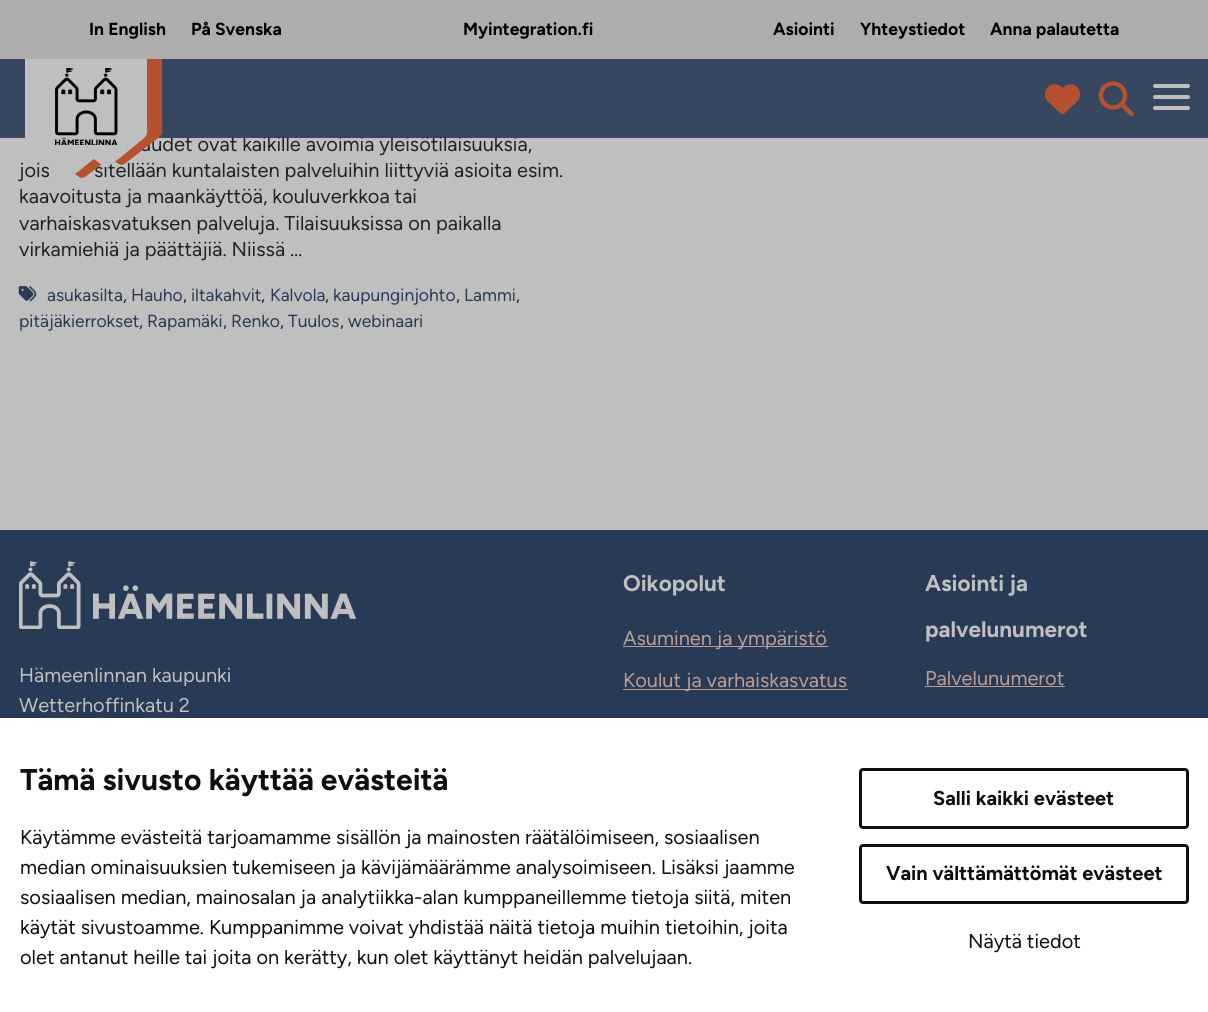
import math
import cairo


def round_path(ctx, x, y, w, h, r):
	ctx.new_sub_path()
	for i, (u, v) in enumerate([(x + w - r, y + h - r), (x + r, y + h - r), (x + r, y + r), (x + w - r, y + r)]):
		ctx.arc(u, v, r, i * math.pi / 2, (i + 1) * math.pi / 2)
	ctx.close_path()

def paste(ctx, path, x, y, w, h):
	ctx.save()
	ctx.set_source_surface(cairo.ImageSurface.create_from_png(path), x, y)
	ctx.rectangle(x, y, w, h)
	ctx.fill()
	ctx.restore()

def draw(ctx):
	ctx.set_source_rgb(0.749, 0.749, 0.749)
	ctx.paint()
	ctx.select_font_face('Figtree Light')
	ctx.set_font_size(20)
	ctx.set_source_rgb(0.133, 0.133, 0.133)
	ctx.move_to(140, 151)
	ctx.show_text('uudet ovat kaikille avoimia yleisötilaisuuksia,')
	ctx.set_source_rgba(0.157, 0.227, 0.337, 0.9)
	ctx.rectangle(0, 59, 1208, 79)
	ctx.fill()
	ctx.set_source_rgb(0.682, 0.675, 0.675)
	ctx.rectangle(0, 0, 1208, 58)
	ctx.fill()
	ctx.set_source_rgb(0.69, 0.686, 0.686)
	ctx.rectangle(0, 58, 1208, 1)
	ctx.rectangle(371, 0, 1, 58)
	ctx.fill()
	ctx.select_font_face('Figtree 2 Light')
	ctx.set_font_size(17.5)
	ctx.set_source_rgb(0, 0, 0)
	ctx.move_to(89, 35)
	ctx.show_text('In English')
	ctx.move_to(191, 35)
	ctx.show_text('På Svenska')
	ctx.set_source_rgb(0.69, 0.686, 0.686)
	ctx.rectangle(683, 0, 1, 58)
	ctx.fill()
	ctx.set_source_rgb(0, 0, 0)
	for x, y, s in [
		(463, 35, 'Myintegration.fi'),
		(773, 35, 'Asiointi'),
		(860, 35, 'Yhteystiedot'),
		(990, 35, 'Anna palautetta'),
	]:
		ctx.move_to(x, y)
		ctx.show_text(s)
	ctx.select_font_face('Figtree Light')
	ctx.set_font_size(20)
	ctx.set_source_rgb(0.133, 0.133, 0.133)
	ctx.move_to(19, 177)
	ctx.show_text('jois')
	ctx.move_to(94, 177)
	ctx.show_text('sitellään kuntalaisten palveluihin liittyviä asioita esim.')
	ctx.set_source_rgb(0.714, 0.318, 0.184)
	ctx.new_path()
	ctx.move_to(40, 59)
	ctx.line_to(40, 143)
	ctx.curve_to(40, 146, 41, 149, 43, 150)
	ctx.line_to(79, 177)
	ctx.curve_to(80, 178, 83, 178, 85, 177)
	ctx.line_to(110, 158)
	ctx.curve_to(124, 168, 120, 167, 136, 155)
	ctx.line_to(153, 142)
	ctx.curve_to(165, 133, 162, 134, 162, 119)
	ctx.line_to(162, 59)
	ctx.close_path()
	ctx.fill()
	ctx.set_source_rgb(0.749, 0.749, 0.749)
	ctx.new_path()
	ctx.move_to(25, 59)
	ctx.line_to(25, 145)
	ctx.curve_to(25, 147, 26, 150, 28, 151)
	ctx.line_to(63, 178)
	ctx.curve_to(65, 179, 68, 179, 70, 178)
	ctx.line_to(94, 159)
	ctx.curve_to(108, 170, 105, 169, 121, 157)
	ctx.line_to(138, 143)
	ctx.curve_to(149, 135, 147, 136, 147, 120)
	ctx.line_to(147, 59)
	ctx.close_path()
	ctx.fill()
	paste(ctx, 'media/1.png', 55, 68, 63, 77)
	ctx.set_source_rgb(0.714, 0.318, 0.184)
	ctx.new_path()
	ctx.move_to(1048.5, 102)
	ctx.line_to(1058.5, 111.5)
	ctx.curve_to(1062.5, 115, 1062.5, 115, 1066.5, 111.5)
	ctx.line_to(1070.5, 107.5)
	ctx.curve_to(1073.5, 105, 1077, 102.5, 1078.5, 99.5)
	ctx.curve_to(1084.5, 89, 1072, 78.5, 1062.5, 88)
	ctx.curve_to(1051.5, 77, 1038.5, 93, 1048.5, 102)
	ctx.close_path()
	ctx.fill()
	paste(ctx, 'media/2.png', 1098, 81, 36, 36)
	ctx.set_source_rgb(0.749, 0.749, 0.749)
	round_path(ctx, 1153, 95, 37, 4, 2)
	ctx.fill()
	round_path(ctx, 1153, 84, 37, 4, 2)
	ctx.fill()
	round_path(ctx, 1153, 106, 37, 4, 2)
	ctx.fill()
	ctx.set_source_rgb(0.133, 0.133, 0.133)
	for x, y, s in [
		(19, 203, 'kaavoitusta ja maankäyttöä, kouluverkkoa tai'),
		(19, 230, 'varhaiskasvatuksen palveluja. Tilaisuuksissa on paikalla'),
		(19, 256, 'virkamiehiä ja päättäjiä. Niissä …'),
	]:
		ctx.move_to(x, y)
		ctx.show_text(s)
	paste(ctx, 'media/3.png', 18, 286, 19, 16)
	ctx.set_font_size(17.5)
	ctx.set_source_rgb(0.157, 0.227, 0.337)
	ctx.move_to(47, 301)
	ctx.show_text('asukasilta')
	ctx.set_source_rgb(0.133, 0.133, 0.133)
	ctx.move_to(123, 301)
	ctx.show_text(',')
	ctx.set_source_rgb(0.157, 0.227, 0.337)
	ctx.move_to(131, 301)
	ctx.show_text('Hauho')
	ctx.set_source_rgb(0.133, 0.133, 0.133)
	ctx.move_to(183, 301)
	ctx.show_text(',')
	ctx.set_source_rgb(0.157, 0.227, 0.337)
	ctx.move_to(191, 301)
	ctx.show_text('iltakahvit')
	ctx.set_source_rgb(0.133, 0.133, 0.133)
	ctx.move_to(261, 301)
	ctx.show_text(',')
	ctx.set_source_rgb(0.157, 0.227, 0.337)
	ctx.move_to(270, 301)
	ctx.show_text('Kalvola')
	ctx.set_source_rgb(0.133, 0.133, 0.133)
	ctx.move_to(325, 301)
	ctx.show_text(',')
	ctx.set_source_rgb(0.157, 0.227, 0.337)
	ctx.move_to(333, 301)
	ctx.show_text('kaupunginjohto')
	ctx.set_source_rgb(0.133, 0.133, 0.133)
	ctx.move_to(456, 301)
	ctx.show_text(',')
	ctx.set_source_rgb(0.157, 0.227, 0.337)
	ctx.move_to(464, 301)
	ctx.show_text('Lammi')
	ctx.set_source_rgb(0.133, 0.133, 0.133)
	ctx.move_to(516, 301)
	ctx.show_text(',')
	ctx.set_source_rgb(0.157, 0.227, 0.337)
	ctx.move_to(19, 327)
	ctx.show_text('pitäjäkierrokset')
	ctx.set_source_rgb(0.133, 0.133, 0.133)
	ctx.move_to(139, 327)
	ctx.show_text(',')
	ctx.set_source_rgb(0.157, 0.227, 0.337)
	ctx.move_to(147, 327)
	ctx.show_text('Rapamäki')
	ctx.set_source_rgb(0.133, 0.133, 0.133)
	ctx.move_to(223, 327)
	ctx.show_text(',')
	ctx.set_source_rgb(0.157, 0.227, 0.337)
	ctx.move_to(231, 327)
	ctx.show_text('Renko')
	ctx.set_source_rgb(0.133, 0.133, 0.133)
	ctx.move_to(280, 327)
	ctx.show_text(',')
	ctx.set_source_rgb(0.157, 0.227, 0.337)
	ctx.move_to(288, 327)
	ctx.show_text('Tuulos')
	ctx.set_source_rgb(0.133, 0.133, 0.133)
	ctx.move_to(340, 327)
	ctx.show_text(',')
	ctx.set_source_rgb(0.157, 0.227, 0.337)
	ctx.move_to(348, 327)
	ctx.show_text('webinaari')
	ctx.rectangle(0, 530, 1208, 188)
	ctx.fill()
	paste(ctx, 'media/4.png', 19, 561, 337, 68)
	ctx.set_font_size(20)
	ctx.set_source_rgb(0.749, 0.749, 0.749)
	ctx.move_to(19, 682)
	ctx.show_text('Hämeenlinnan kaupunki')
	ctx.move_to(19, 712)
	ctx.show_text('Wetterhoffinkatu 2')
	ctx.select_font_face('Figtree 2 Light')
	ctx.set_font_size(22.5)
	ctx.move_to(623, 591)
	ctx.show_text('Oikopolut')
	ctx.set_source_rgb(0.737, 0.62, 0.58)
	ctx.rectangle(623, 646, 205, 1)
	ctx.fill()
	ctx.select_font_face('Figtree Light')
	ctx.set_font_size(20)
	ctx.move_to(623, 645)
	ctx.show_text('Asuminen ja ympäristö')
	ctx.rectangle(623, 689, 225, 1)
	ctx.fill()
	ctx.move_to(623, 687)
	ctx.show_text('Koulut ja varhaiskasvatus')
	ctx.select_font_face('Figtree 2 Light')
	ctx.set_font_size(22.5)
	ctx.set_source_rgb(0.749, 0.749, 0.749)
	ctx.move_to(925, 591)
	ctx.show_text('Asiointi ja')
	ctx.move_to(925, 637)
	ctx.show_text('palvelunumerot')
	ctx.select_font_face('Figtree Light')
	ctx.set_font_size(20)
	ctx.set_source_rgb(0.737, 0.62, 0.58)
	ctx.move_to(925, 685)
	ctx.show_text('Palvelunumerot')
	ctx.rectangle(925, 686, 140, 1)
	ctx.fill()
	ctx.set_source_rgb(1, 1, 1)
	ctx.rectangle(0, 718, 1208, 294)
	ctx.fill()
	ctx.select_font_face('Figtree 2 Light')
	ctx.set_font_size(30)
	ctx.set_source_rgb(0.059, 0.059, 0.059)
	ctx.move_to(20, 790)
	ctx.show_text('Tämä sivusto käyttää evästeitä')
	ctx.select_font_face('Figtree Light')
	ctx.set_font_size(20)
	for x, y, s in [
		(20, 844, 'Käytämme evästeitä tarjoamamme sisällön ja mainosten räätälöimiseen, sosiaalisen'),
		(20, 874, 'median ominaisuuksien tukemiseen ja kävijämäärämme analysoimiseen. Lisäksi jaamme'),
		(20, 904, 'sosiaalisen median, mainosalan ja analytiikka-alan kumppaneillemme tietoja siitä, miten'),
		(20, 934, 'käytät sivustoamme. Kumppanimme voivat yhdistää näitä tietoja muihin tietoihin, joita'),
		(20, 964, 'olet antanut heille tai joita on kerätty, kun olet käyttänyt heidän palvelujaan.'),
	]:
		ctx.move_to(x, y)
		ctx.show_text(s)
	round_path(ctx, 860.5, 769.5, 327, 58, 2.5)
	ctx.set_line_width(3)
	ctx.stroke()
	ctx.select_font_face('Figtree 2 Light')
	ctx.move_to(933, 805)
	ctx.show_text('Salli kaikki evästeet')
	round_path(ctx, 860.5, 845.5, 327, 57, 2.5)
	ctx.stroke()
	ctx.move_to(886, 880)
	ctx.show_text('Vain välttämättömät evästeet')
	ctx.select_font_face('Figtree Light')
	ctx.move_to(968, 948)
	ctx.show_text('Näytä tiedot')


surface = cairo.ImageSurface(cairo.FORMAT_RGB24, 1208, 1012)
ctx = cairo.Context(surface)
options = cairo.FontOptions()
options.set_hint_metrics(cairo.HINT_METRICS_OFF)
options.set_hint_style(cairo.HINT_STYLE_NONE)
ctx.set_font_options(options)
ctx.set_miter_limit(4)
draw(ctx)
surface.write_to_png('image.png')
